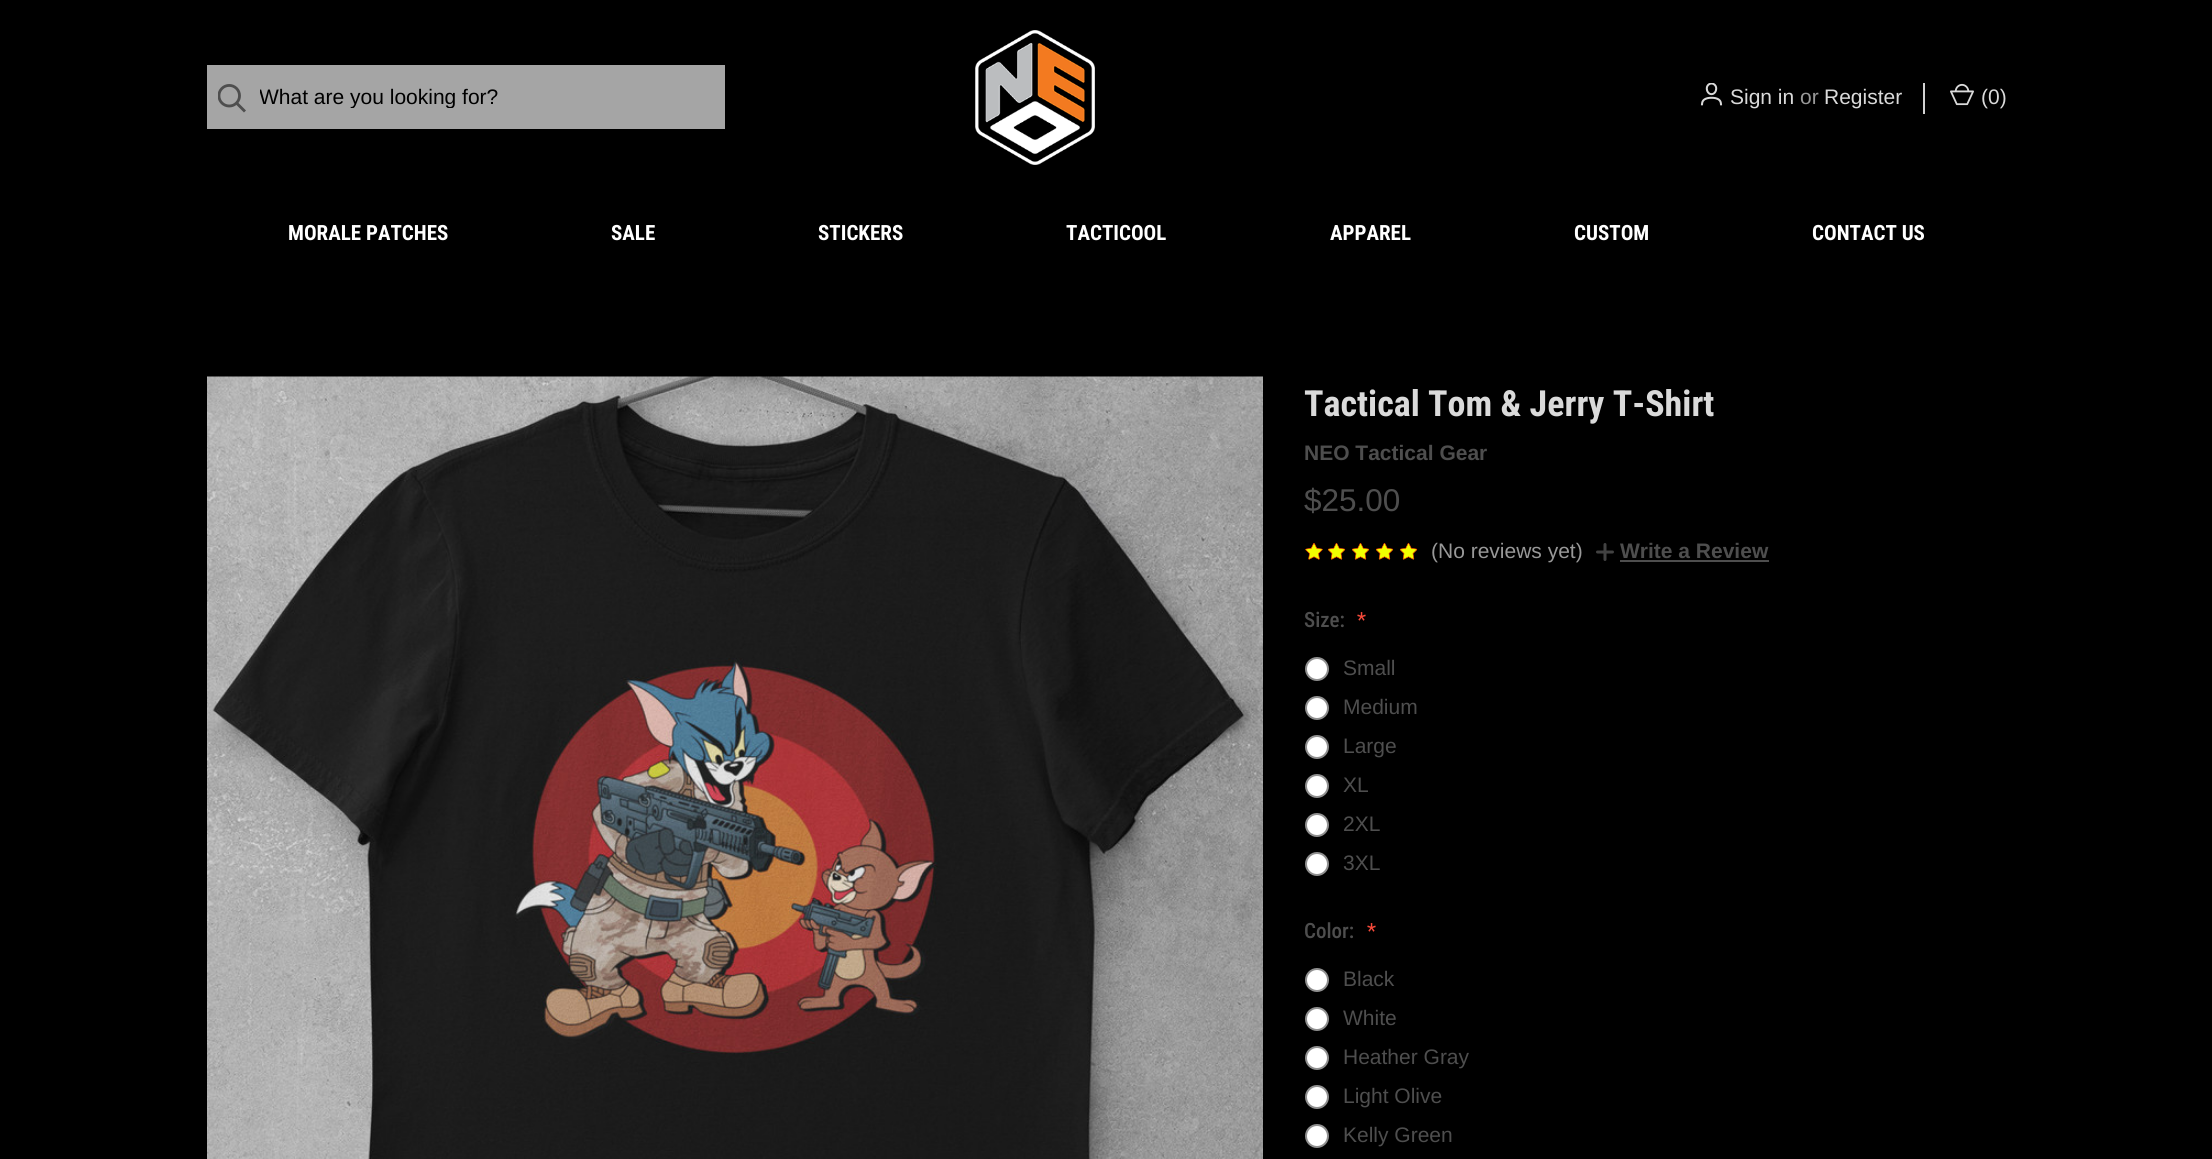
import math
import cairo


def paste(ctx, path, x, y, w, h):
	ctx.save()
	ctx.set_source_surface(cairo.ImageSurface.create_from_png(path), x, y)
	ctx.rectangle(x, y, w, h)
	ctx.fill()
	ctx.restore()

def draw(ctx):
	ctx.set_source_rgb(0, 0, 0)
	ctx.paint()
	ctx.set_source_rgb(0.647, 0.647, 0.647)
	ctx.rectangle(207, 65, 518, 64)
	ctx.fill()
	paste(ctx, 'media/1.png', 218, 84, 28, 29)
	ctx.save()
	ctx.rectangle(260, 84, 444, 24)
	ctx.clip()
	ctx.select_font_face('Liberation Sans')
	ctx.set_font_size(21)
	ctx.set_source_rgb(0, 0, 0)
	ctx.move_to(259, 104)
	ctx.show_text('What are you looking for?')
	ctx.restore()
	paste(ctx, 'media/2.png', 975, 30, 120, 135)
	paste(ctx, 'media/3.png', 1700, 83, 23, 23)
	ctx.select_font_face('Liberation Sans')
	ctx.set_font_size(21)
	ctx.set_source_rgb(0.855, 0.855, 0.855)
	ctx.move_to(1730, 104)
	ctx.show_text('Sign in')
	ctx.set_source_rgb(0.596, 0.596, 0.596)
	ctx.move_to(1800, 104)
	ctx.show_text('or')
	ctx.set_source_rgb(0.855, 0.855, 0.855)
	ctx.move_to(1824, 104)
	ctx.show_text('Register')
	ctx.set_source_rgb(0.824, 0.824, 0.824)
	ctx.rectangle(1923, 83, 2, 31)
	ctx.fill()
	paste(ctx, 'media/4.png', 1950, 83, 24, 23)
	ctx.set_source_rgb(0.855, 0.855, 0.855)
	ctx.move_to(1981, 104)
	ctx.show_text('(0)')
	ctx.select_font_face('Roboto Condensed', cairo.FONT_SLANT_NORMAL, cairo.FONT_WEIGHT_BOLD)
	ctx.set_source_rgb(1, 1, 1)
	for x, y, s in [
		(288, 240, 'MORALE PATCHES'),
		(611, 240, 'SALE'),
		(818, 240, 'STICKERS'),
		(1066, 240, 'TACTICOOL'),
		(1330, 240, 'APPAREL'),
		(1574, 240, 'CUSTOM'),
		(1812, 240, 'CONTACT US'),
	]:
		ctx.move_to(x, y)
		ctx.show_text(s)
	paste(ctx, 'media/5.png', 207, 376, 1056, 783)
	ctx.set_font_size(36)
	ctx.set_source_rgb(0.855, 0.855, 0.855)
	ctx.move_to(1304, 416)
	ctx.show_text('Tactical Tom & Jerry T-Shirt')
	ctx.select_font_face('Liberation Sans', cairo.FONT_SLANT_NORMAL, cairo.FONT_WEIGHT_BOLD)
	ctx.set_font_size(21)
	ctx.set_source_rgb(0.306, 0.306, 0.306)
	ctx.move_to(1304, 460)
	ctx.show_text('NEO Tactical Gear')
	ctx.select_font_face('Liberation Sans')
	ctx.set_font_size(31.5)
	ctx.move_to(1304, 511)
	ctx.show_text('$25.00')
	paste(ctx, 'media/6.png', 1305, 543, 18, 17)
	paste(ctx, 'media/7.png', 1328, 543, 18, 17)
	paste(ctx, 'media/7.png', 1352, 543, 18, 17)
	paste(ctx, 'media/7.png', 1376, 543, 18, 17)
	paste(ctx, 'media/7.png', 1400, 543, 18, 17)
	ctx.set_font_size(21)
	ctx.set_source_rgb(0.596, 0.596, 0.596)
	ctx.move_to(1431, 558)
	ctx.show_text('(No reviews yet)')
	paste(ctx, 'media/8.png', 1596, 543, 18, 18)
	ctx.select_font_face('Liberation Sans', cairo.FONT_SLANT_NORMAL, cairo.FONT_WEIGHT_BOLD)
	ctx.set_source_rgb(0.306, 0.306, 0.306)
	ctx.move_to(1620, 558)
	ctx.show_text('Write a Review')
	ctx.rectangle(1620, 560, 149, 2)
	ctx.fill()
	ctx.select_font_face('Roboto Condensed Medium')
	ctx.move_to(1304, 627)
	ctx.show_text('Size:')
	ctx.select_font_face('Roboto Condensed')
	ctx.set_source_rgb(0.961, 0.29, 0.227)
	ctx.move_to(1357, 627)
	ctx.show_text('*')
	ctx.set_source_rgb(1, 1, 1)
	ctx.new_path()
	ctx.arc(1317, 669, 11, 0, 2 * math.pi)
	ctx.fill_preserve()
	ctx.set_source_rgb(0.561, 0.561, 0.561)
	ctx.stroke()
	ctx.select_font_face('Liberation Sans')
	ctx.set_source_rgb(0.306, 0.306, 0.306)
	ctx.move_to(1343, 675)
	ctx.show_text('Small')
	ctx.set_source_rgb(1, 1, 1)
	ctx.new_path()
	ctx.arc(1317, 708, 11, 0, 2 * math.pi)
	ctx.fill_preserve()
	ctx.set_source_rgb(0.561, 0.561, 0.561)
	ctx.stroke()
	ctx.set_source_rgb(0.306, 0.306, 0.306)
	ctx.move_to(1343, 714)
	ctx.show_text('Medium')
	ctx.set_source_rgb(1, 1, 1)
	ctx.new_path()
	ctx.arc(1317, 747, 11, 0, 2 * math.pi)
	ctx.fill_preserve()
	ctx.set_source_rgb(0.561, 0.561, 0.561)
	ctx.stroke()
	ctx.set_source_rgb(0.306, 0.306, 0.306)
	ctx.move_to(1343, 753)
	ctx.show_text('Large')
	ctx.set_source_rgb(1, 1, 1)
	ctx.new_path()
	ctx.arc(1317, 786, 11, 0, 2 * math.pi)
	ctx.fill_preserve()
	ctx.set_source_rgb(0.561, 0.561, 0.561)
	ctx.stroke()
	ctx.set_source_rgb(0.306, 0.306, 0.306)
	ctx.move_to(1343, 792)
	ctx.show_text('XL')
	ctx.set_source_rgb(1, 1, 1)
	ctx.new_path()
	ctx.arc(1317, 825, 11, 0, 2 * math.pi)
	ctx.fill_preserve()
	ctx.set_source_rgb(0.561, 0.561, 0.561)
	ctx.stroke()
	ctx.set_source_rgb(0.306, 0.306, 0.306)
	ctx.move_to(1343, 831)
	ctx.show_text('2XL')
	ctx.set_source_rgb(1, 1, 1)
	ctx.new_path()
	ctx.arc(1317, 864, 11, 0, 2 * math.pi)
	ctx.fill_preserve()
	ctx.set_source_rgb(0.561, 0.561, 0.561)
	ctx.stroke()
	ctx.set_source_rgb(0.306, 0.306, 0.306)
	ctx.move_to(1343, 870)
	ctx.show_text('3XL')
	ctx.select_font_face('Roboto Condensed Medium')
	ctx.move_to(1304, 938)
	ctx.show_text('Color:')
	ctx.select_font_face('Roboto Condensed')
	ctx.set_source_rgb(0.961, 0.29, 0.227)
	ctx.move_to(1367, 938)
	ctx.show_text('*')
	ctx.set_source_rgb(1, 1, 1)
	ctx.new_path()
	ctx.arc(1317, 980, 11, 0, 2 * math.pi)
	ctx.fill_preserve()
	ctx.set_source_rgb(0.561, 0.561, 0.561)
	ctx.stroke()
	ctx.select_font_face('Liberation Sans')
	ctx.set_source_rgb(0.306, 0.306, 0.306)
	ctx.move_to(1343, 986)
	ctx.show_text('Black')
	ctx.set_source_rgb(1, 1, 1)
	ctx.new_path()
	ctx.arc(1317, 1019, 11, 0, 2 * math.pi)
	ctx.fill_preserve()
	ctx.set_source_rgb(0.561, 0.561, 0.561)
	ctx.stroke()
	ctx.set_source_rgb(0.306, 0.306, 0.306)
	ctx.move_to(1343, 1025)
	ctx.show_text('White')
	ctx.set_source_rgb(1, 1, 1)
	ctx.new_path()
	ctx.arc(1317, 1058, 11, 0, 2 * math.pi)
	ctx.fill_preserve()
	ctx.set_source_rgb(0.561, 0.561, 0.561)
	ctx.stroke()
	ctx.set_source_rgb(0.306, 0.306, 0.306)
	ctx.move_to(1343, 1064)
	ctx.show_text('Heather Gray')
	ctx.set_source_rgb(1, 1, 1)
	ctx.new_path()
	ctx.arc(1317, 1097, 11, 0, 2 * math.pi)
	ctx.fill_preserve()
	ctx.set_source_rgb(0.561, 0.561, 0.561)
	ctx.stroke()
	ctx.set_source_rgb(0.306, 0.306, 0.306)
	ctx.move_to(1343, 1103)
	ctx.show_text('Light Olive')
	ctx.set_source_rgb(1, 1, 1)
	ctx.new_path()
	ctx.arc(1317, 1136, 11, 0, 2 * math.pi)
	ctx.fill_preserve()
	ctx.set_source_rgb(0.561, 0.561, 0.561)
	ctx.stroke()
	ctx.set_source_rgb(0.306, 0.306, 0.306)
	ctx.move_to(1343, 1142)
	ctx.show_text('Kelly Green')


surface = cairo.ImageSurface(cairo.FORMAT_RGB24, 2212, 1159)
ctx = cairo.Context(surface)
options = cairo.FontOptions()
options.set_hint_metrics(cairo.HINT_METRICS_OFF)
options.set_hint_style(cairo.HINT_STYLE_NONE)
ctx.set_font_options(options)
ctx.set_miter_limit(4)
draw(ctx)
surface.write_to_png('image.png')
